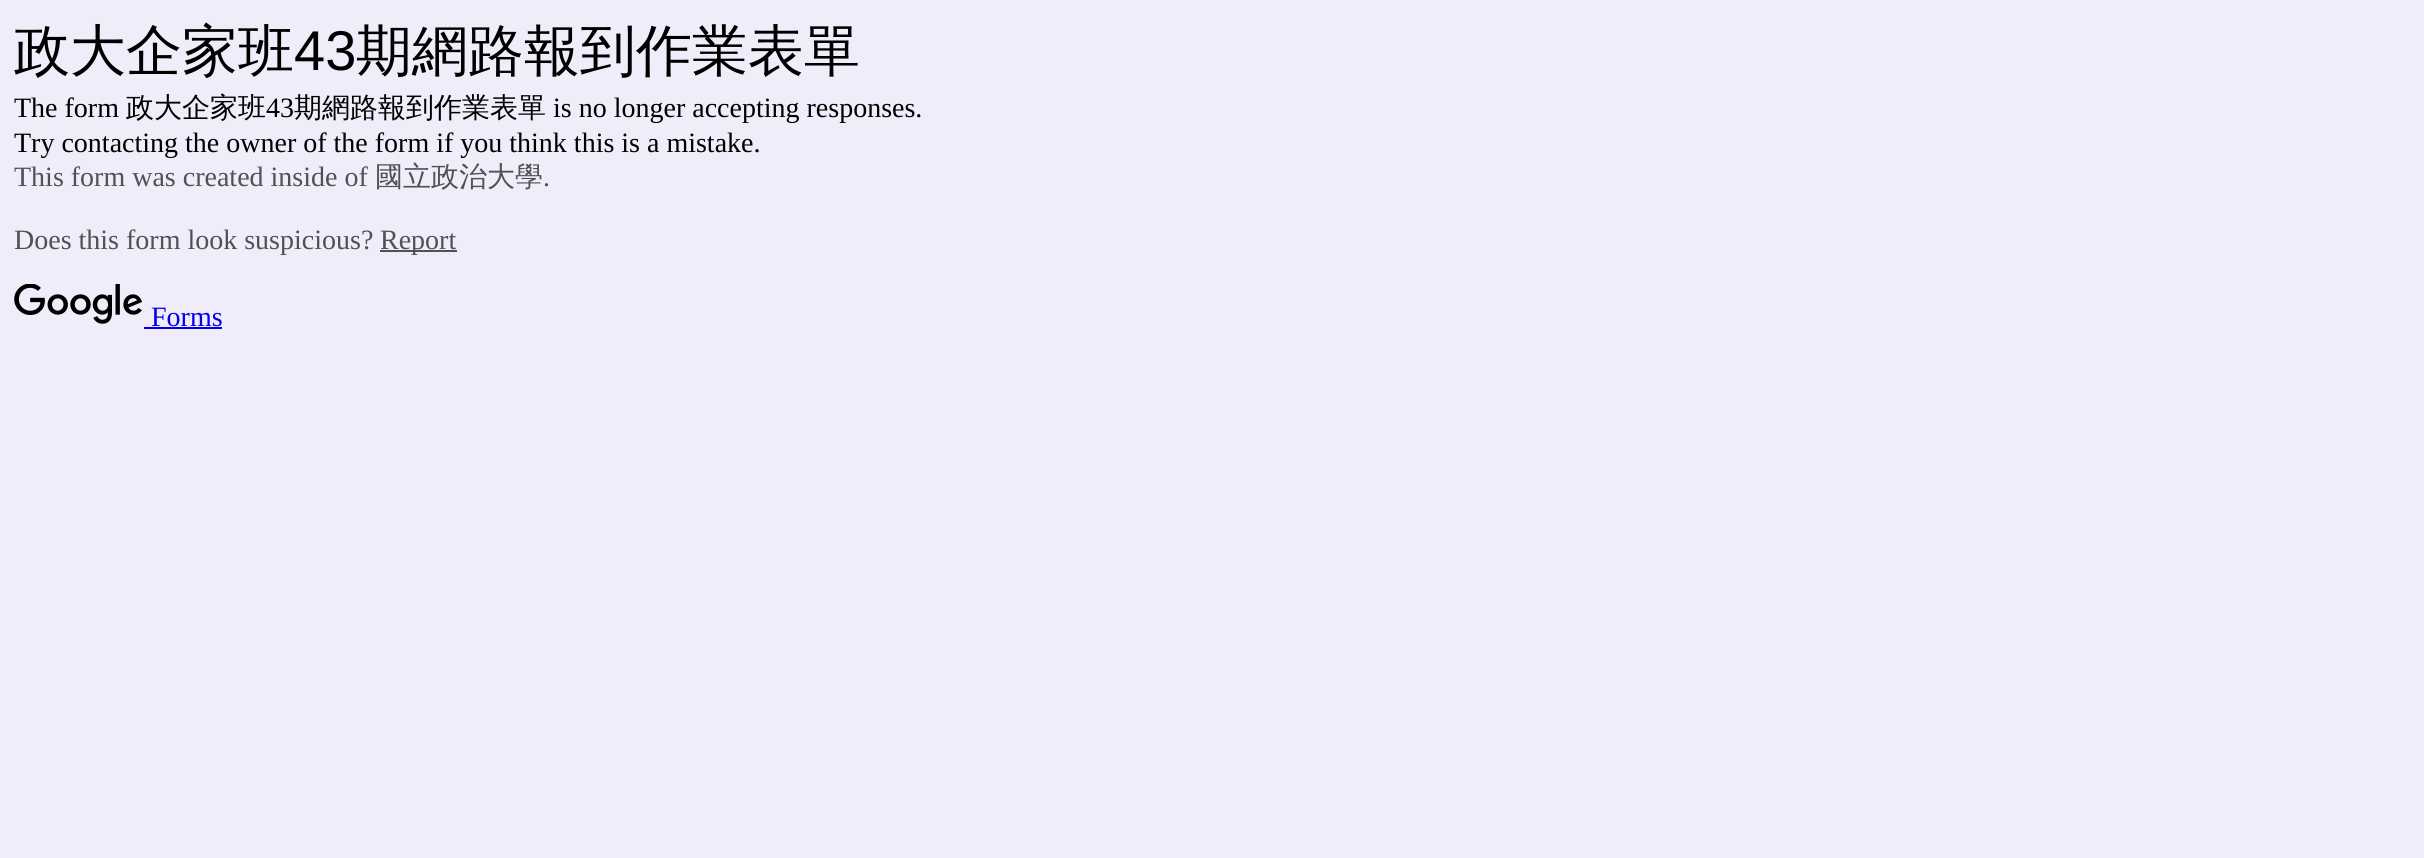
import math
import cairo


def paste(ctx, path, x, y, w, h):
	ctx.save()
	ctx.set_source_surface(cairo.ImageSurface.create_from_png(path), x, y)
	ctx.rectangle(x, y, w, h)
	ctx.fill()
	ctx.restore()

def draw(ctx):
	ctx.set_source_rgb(0.941, 0.922, 0.973)
	ctx.paint()
	ctx.select_font_face('WenQuanYi Zen Hei Medium')
	ctx.set_font_size(56)
	ctx.set_source_rgb(0, 0, 0)
	ctx.move_to(14, 70)
	ctx.show_text('政大企家班')
	ctx.select_font_face('Liberation Sans')
	ctx.move_to(294, 70)
	ctx.show_text('43')
	ctx.select_font_face('WenQuanYi Zen Hei Medium')
	ctx.move_to(356, 70)
	ctx.show_text('期網路報到作業表單')
	ctx.select_font_face('Liberation Serif')
	ctx.set_font_size(28)
	ctx.move_to(14, 117)
	ctx.show_text('The form')
	ctx.select_font_face('WenQuanYi Zen Hei Medium')
	ctx.move_to(126, 117)
	ctx.show_text('政大企家班')
	ctx.select_font_face('Liberation Serif')
	ctx.move_to(266, 117)
	ctx.show_text('43')
	ctx.select_font_face('WenQuanYi Zen Hei Medium')
	ctx.move_to(294, 117)
	ctx.show_text('期網路報到作業表單')
	ctx.select_font_face('Liberation Serif')
	ctx.move_to(553, 117)
	ctx.show_text('is no longer accepting responses.')
	ctx.move_to(14, 152)
	ctx.show_text('Try contacting the owner of the form if you think this is a mistake.')
	ctx.set_source_rgb(0.322, 0.314, 0.329)
	ctx.move_to(14, 186)
	ctx.show_text('This form was created inside of')
	ctx.select_font_face('WenQuanYi Zen Hei Medium')
	ctx.move_to(375, 186)
	ctx.show_text('國立政治大學')
	ctx.select_font_face('Liberation Serif')
	ctx.move_to(543, 186)
	ctx.show_text('.')
	ctx.move_to(14, 249)
	ctx.show_text('Does this form look suspicious?')
	ctx.rectangle(380, 250, 77, 2)
	ctx.fill()
	ctx.move_to(380, 249)
	ctx.show_text('Report')
	paste(ctx, 'media/1.png', 14, 284, 128, 40)
	ctx.set_source_rgb(0, 0, 0.933)
	ctx.move_to(151, 326)
	ctx.show_text('Forms')
	ctx.rectangle(144, 327, 78, 2)
	ctx.fill()


surface = cairo.ImageSurface(cairo.FORMAT_RGB24, 2424, 858)
ctx = cairo.Context(surface)
options = cairo.FontOptions()
options.set_hint_metrics(cairo.HINT_METRICS_OFF)
options.set_hint_style(cairo.HINT_STYLE_NONE)
ctx.set_font_options(options)
ctx.set_miter_limit(4)
draw(ctx)
surface.write_to_png('image.png')
